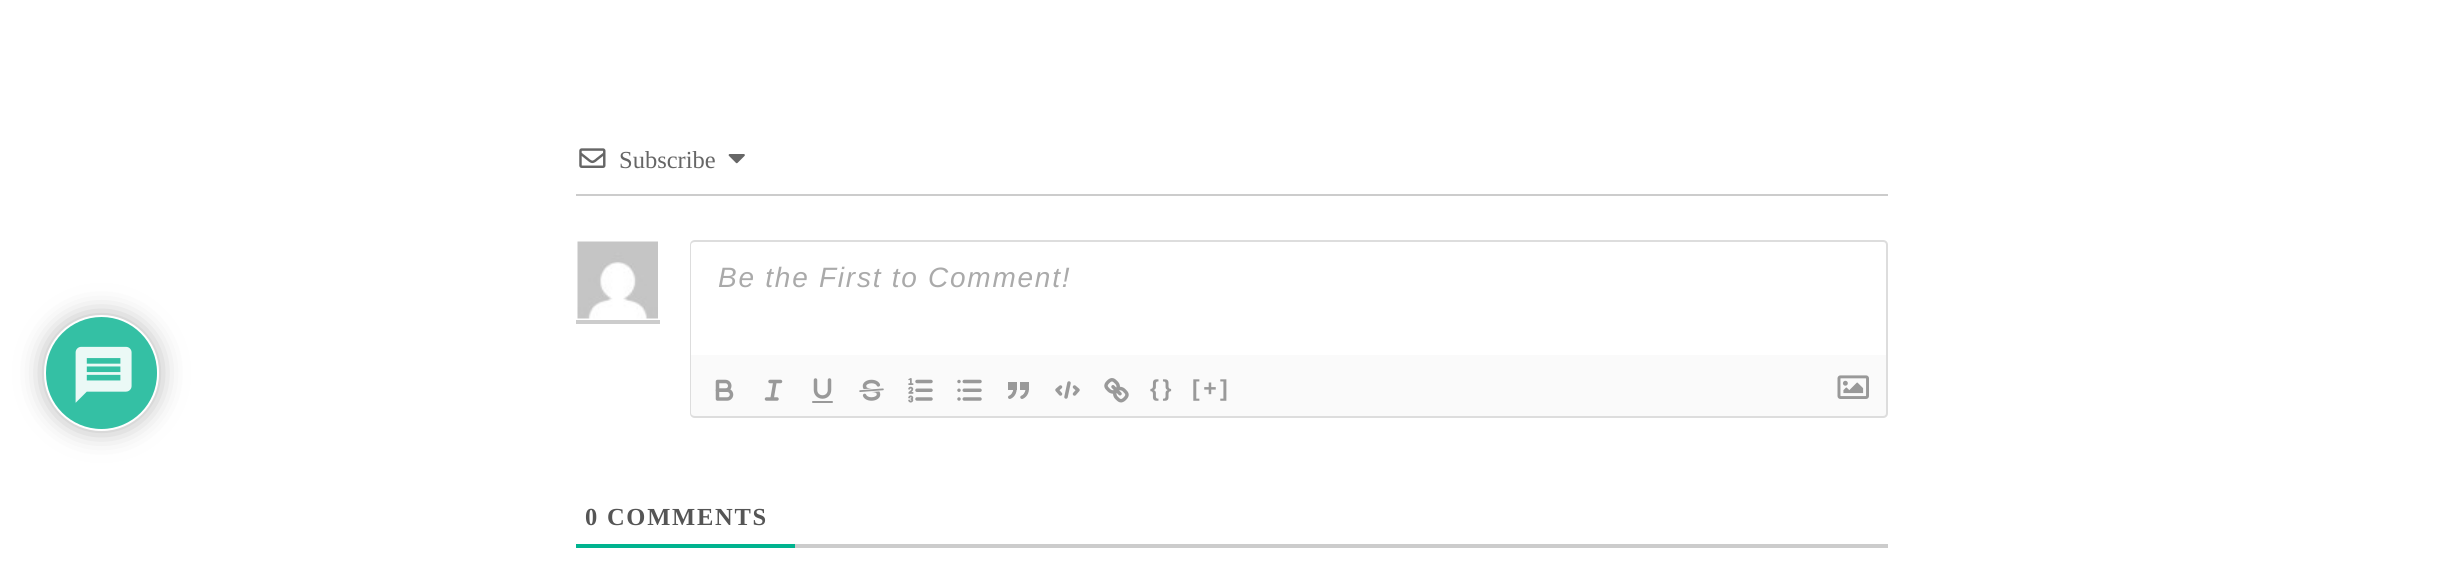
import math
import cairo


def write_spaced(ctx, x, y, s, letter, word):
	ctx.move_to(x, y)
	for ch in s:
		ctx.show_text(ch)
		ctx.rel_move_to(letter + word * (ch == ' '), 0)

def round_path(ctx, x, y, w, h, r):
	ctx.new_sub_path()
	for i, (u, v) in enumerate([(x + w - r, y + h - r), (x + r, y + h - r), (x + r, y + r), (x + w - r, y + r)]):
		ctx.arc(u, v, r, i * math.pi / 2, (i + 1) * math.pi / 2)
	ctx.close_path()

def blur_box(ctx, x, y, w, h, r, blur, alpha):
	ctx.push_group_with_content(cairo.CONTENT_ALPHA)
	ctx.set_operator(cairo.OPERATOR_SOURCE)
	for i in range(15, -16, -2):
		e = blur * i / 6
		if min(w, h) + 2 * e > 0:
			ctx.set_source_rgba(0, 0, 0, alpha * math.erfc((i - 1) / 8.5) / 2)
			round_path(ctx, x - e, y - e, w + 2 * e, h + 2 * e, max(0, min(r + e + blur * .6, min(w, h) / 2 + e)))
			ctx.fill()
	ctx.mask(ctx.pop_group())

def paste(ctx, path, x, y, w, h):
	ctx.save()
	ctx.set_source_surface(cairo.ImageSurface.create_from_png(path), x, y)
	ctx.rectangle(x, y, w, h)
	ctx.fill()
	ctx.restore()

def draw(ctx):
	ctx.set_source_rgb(1, 1, 1)
	ctx.paint()
	ctx.set_source_rgb(0.702, 0.702, 0.702)
	blur_box(ctx, 44, 315, 115, 116, 57.5, 13, 1)
	ctx.set_source_rgb(0.204, 0.753, 0.643)
	round_path(ctx, 45, 316, 113, 114, 56.5)
	ctx.fill_preserve()
	ctx.set_source_rgb(1, 1, 1)
	ctx.stroke()
	paste(ctx, 'media/1.png', 75, 346, 57, 57)
	ctx.set_source_rgb(0.8, 0.8, 0.8)
	ctx.rectangle(576, 194, 1312, 2)
	ctx.fill()
	paste(ctx, 'media/2.png', 579, 148, 27, 20)
	ctx.select_font_face('Liberation Serif')
	ctx.set_font_size(24.5)
	ctx.set_source_rgb(0.4, 0.4, 0.4)
	ctx.move_to(619, 168)
	ctx.show_text('Subscribe')
	paste(ctx, 'media/3.png', 728, 154, 17, 10)
	paste(ctx, 'media/4.png', 577, 241, 81, 78)
	ctx.set_source_rgb(0.8, 0.8, 0.8)
	ctx.rectangle(576, 320, 84, 4)
	ctx.fill()
	ctx.set_source_rgb(0.867, 0.867, 0.867)
	ctx.set_fill_rule(cairo.FILL_RULE_EVEN_ODD)
	ctx.new_path()
	ctx.move_to(695, 240)
	ctx.line_to(1883, 240)
	ctx.curve_to(1886, 240, 1888, 242, 1888, 245)
	ctx.line_to(1888, 355)
	ctx.line_to(690, 355)
	ctx.line_to(690, 245)
	ctx.curve_to(690, 242, 692, 240, 695, 240)
	ctx.close_path()
	ctx.move_to(695, 242)
	ctx.line_to(1883, 242)
	ctx.curve_to(1885, 242, 1886, 243, 1886, 245)
	ctx.line_to(1886, 355)
	ctx.line_to(691, 355)
	ctx.line_to(691, 245)
	ctx.curve_to(691, 243, 693, 242, 695, 242)
	ctx.close_path()
	ctx.fill()
	ctx.select_font_face('Liberation Sans', cairo.FONT_SLANT_ITALIC)
	ctx.set_font_size(28)
	ctx.set_source_rgb(0.667, 0.667, 0.667)
	write_spaced(ctx, 718, 287, 'Be the First to Comment!', 1.75, 0)
	ctx.set_source_rgb(0.98, 0.98, 0.98)
	ctx.new_path()
	ctx.move_to(690, 355)
	ctx.line_to(1888, 355)
	ctx.line_to(1888, 413)
	ctx.curve_to(1888, 416, 1886, 418, 1883, 418)
	ctx.line_to(695, 418)
	ctx.curve_to(692, 418, 690, 416, 690, 413)
	ctx.close_path()
	ctx.fill()
	ctx.set_source_rgb(0.867, 0.867, 0.867)
	ctx.new_path()
	ctx.move_to(690, 355)
	ctx.line_to(1888, 355)
	ctx.line_to(1888, 413)
	ctx.curve_to(1888, 416, 1886, 418, 1883, 418)
	ctx.line_to(695, 418)
	ctx.curve_to(692, 418, 690, 416, 690, 413)
	ctx.close_path()
	ctx.move_to(691, 355)
	ctx.line_to(1886, 355)
	ctx.line_to(1886, 413)
	ctx.curve_to(1886, 415, 1885, 416, 1883, 416)
	ctx.line_to(695, 416)
	ctx.curve_to(693, 416, 691, 415, 691, 413)
	ctx.close_path()
	ctx.fill()
	paste(ctx, 'media/5.png', 715, 379, 19, 22)
	ctx.new_path()
	ctx.move_to(770, 381.5)
	ctx.line_to(780.5, 381.5)
	ctx.move_to(766.5, 399)
	ctx.line_to(777, 399)
	ctx.move_to(772, 399)
	ctx.line_to(775, 381.5)
	ctx.set_source_rgb(0.6, 0.6, 0.6)
	ctx.set_line_width(3.5)
	ctx.set_line_cap(cairo.LINE_CAP_ROUND)
	ctx.set_line_join(cairo.LINE_JOIN_ROUND)
	ctx.stroke()
	ctx.new_path()
	ctx.move_to(815.5, 380)
	ctx.line_to(815.5, 390)
	ctx.curve_to(815.5, 394, 818.5, 397, 822.5, 397)
	ctx.curve_to(826.5, 397, 829.5, 394, 829.5, 390)
	ctx.line_to(829.5, 380)
	ctx.stroke()
	round_path(ctx, 812, 401, 21, 2, 1)
	ctx.fill()
	paste(ctx, 'media/6.png', 859, 379, 25, 22)
	paste(ctx, 'media/7.png', 908, 378, 25, 25)
	paste(ctx, 'media/8.png', 957, 379, 25, 22)
	paste(ctx, 'media/9.png', 1008, 382, 21, 17)
	ctx.new_path()
	ctx.move_to(1060.5, 387)
	ctx.line_to(1057, 390)
	ctx.line_to(1060.5, 394)
	ctx.move_to(1074.5, 387)
	ctx.line_to(1078, 390)
	ctx.line_to(1074.5, 394)
	ctx.move_to(1069, 383)
	ctx.line_to(1066, 397)
	ctx.stroke()
	paste(ctx, 'media/10.png', 1104, 378, 25, 25)
	ctx.select_font_face('Liberation Sans', cairo.FONT_SLANT_NORMAL, cairo.FONT_WEIGHT_BOLD)
	ctx.set_font_size(23)
	write_spaced(ctx, 1150, 396, '{}', 3.5, 0)
	write_spaced(ctx, 1192, 396, '[+]', 3.5, 0)
	paste(ctx, 'media/11.png', 1837, 375, 32, 24)
	ctx.set_source_rgb(0.8, 0.8, 0.8)
	ctx.rectangle(795, 544, 1093, 4)
	ctx.fill()
	ctx.set_source_rgb(0, 0.702, 0.561)
	ctx.rectangle(576, 544, 219, 4)
	ctx.fill()
	ctx.select_font_face('Liberation Serif', cairo.FONT_SLANT_NORMAL, cairo.FONT_WEIGHT_BOLD)
	ctx.set_font_size(24.5)
	ctx.set_source_rgb(0.333, 0.333, 0.333)
	write_spaced(ctx, 585, 525, '0 COMMENTS', 1.75, 0)


surface = cairo.ImageSurface(cairo.FORMAT_RGB24, 2464, 569)
ctx = cairo.Context(surface)
options = cairo.FontOptions()
options.set_hint_metrics(cairo.HINT_METRICS_OFF)
options.set_hint_style(cairo.HINT_STYLE_NONE)
ctx.set_font_options(options)
ctx.set_miter_limit(4)
draw(ctx)
surface.write_to_png('image.png')
